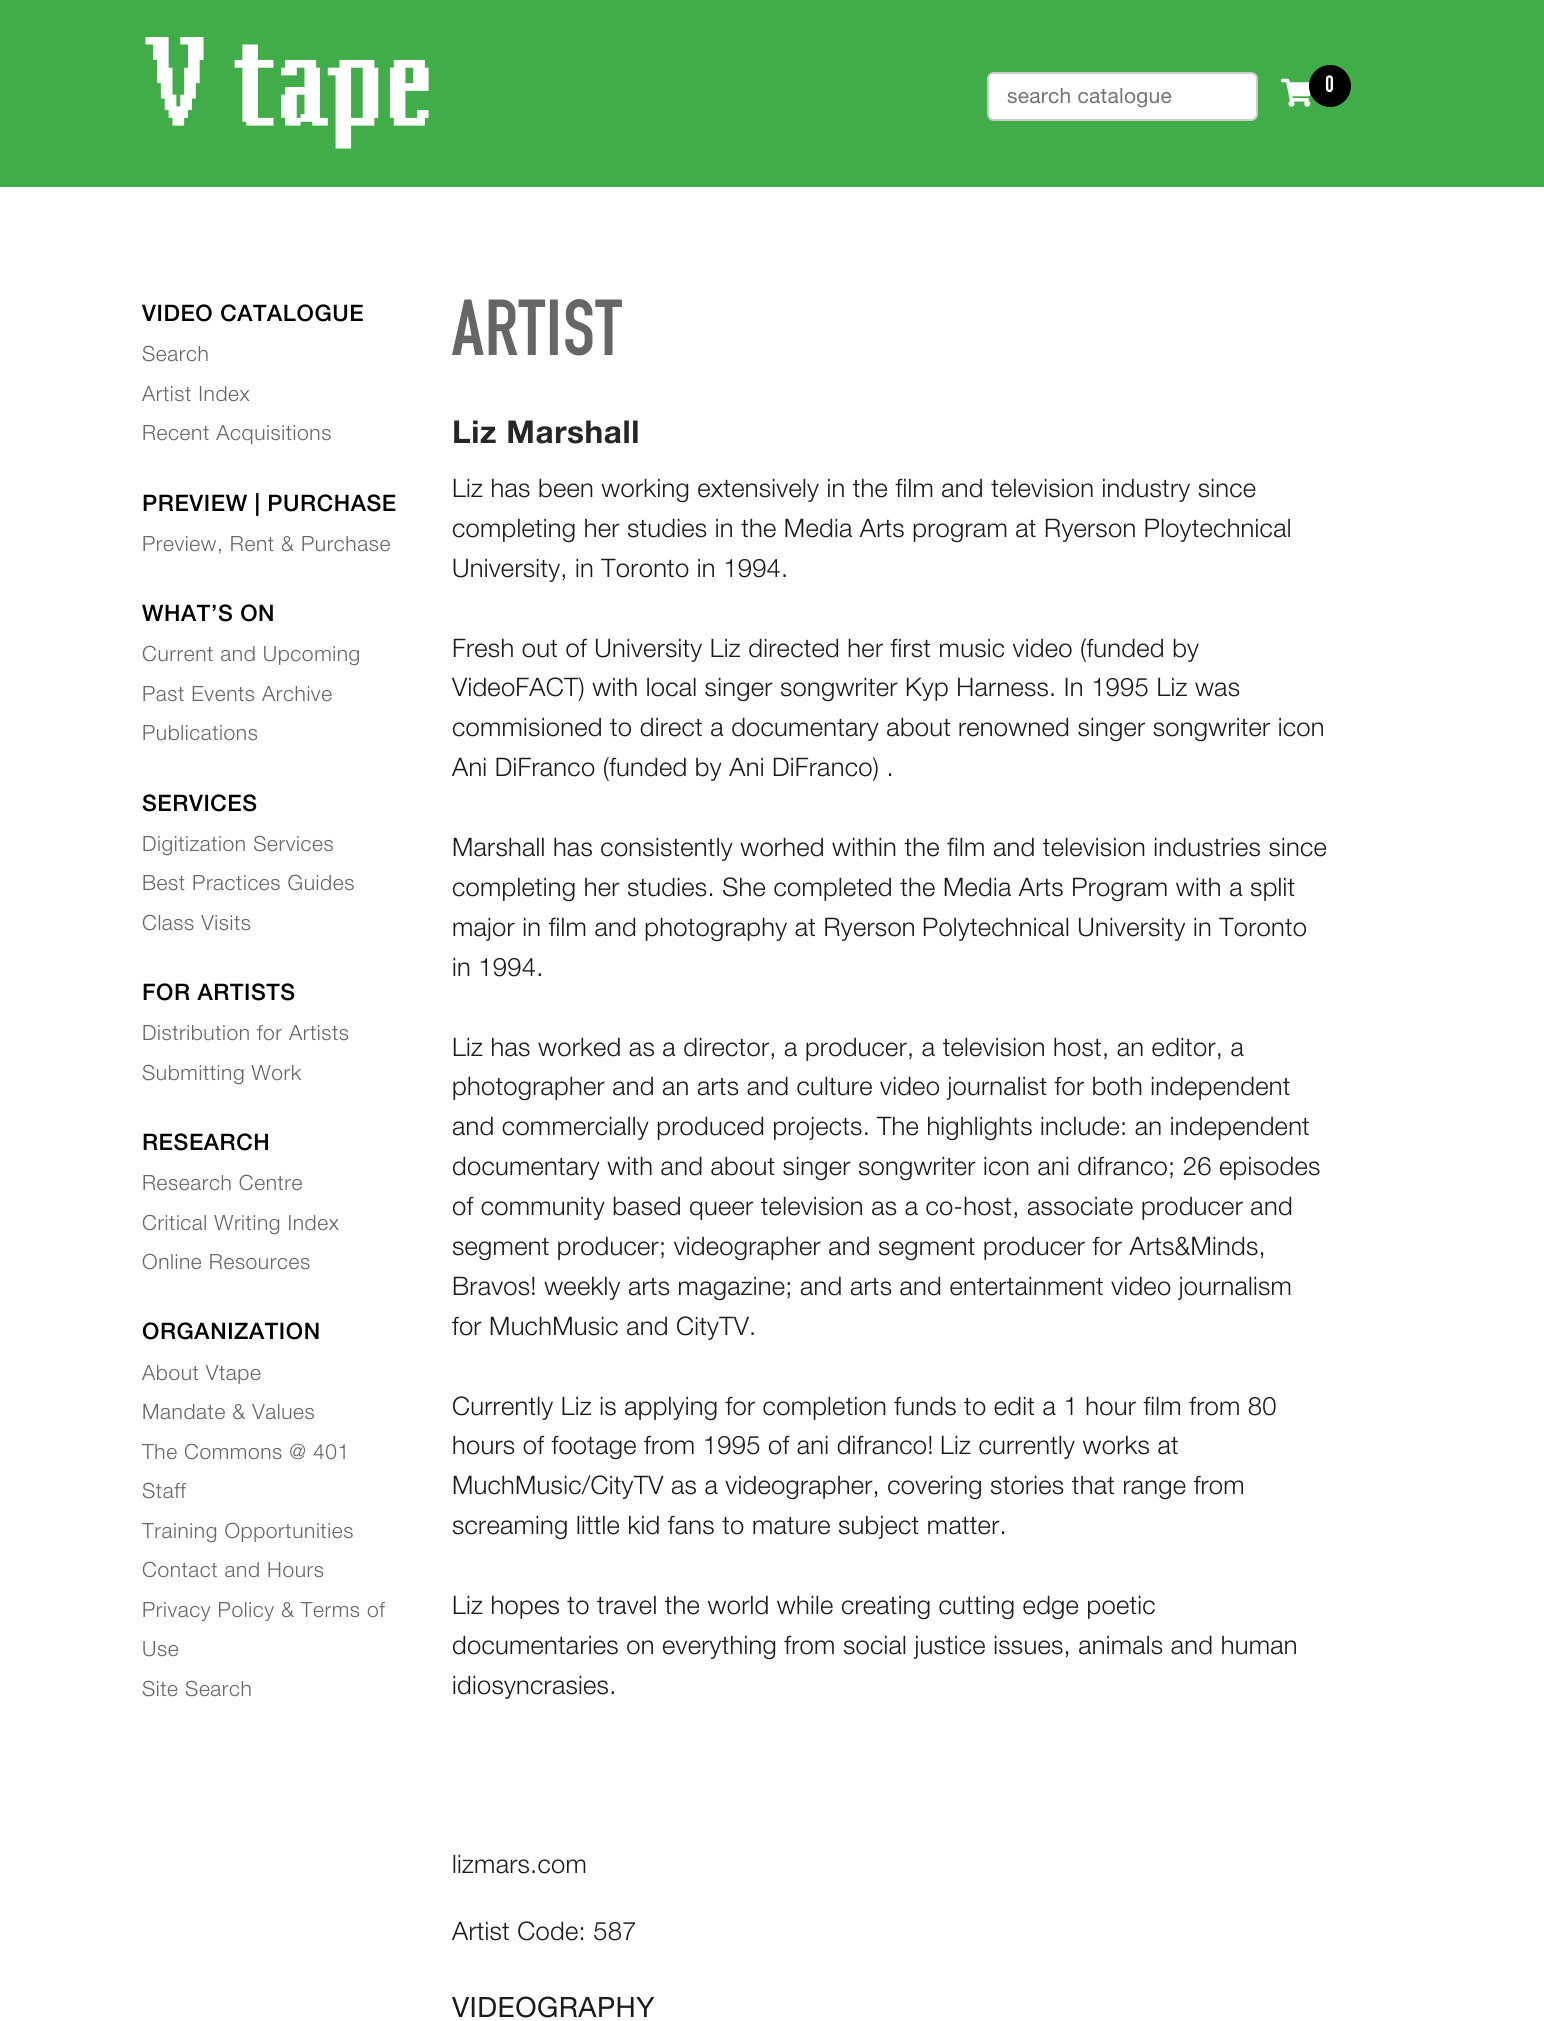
import math
import cairo


def write_spaced(ctx, x, y, s, letter, word):
	ctx.move_to(x, y)
	for ch in s:
		ctx.show_text(ch)
		ctx.rel_move_to(letter + word * (ch == ' '), 0)

def round_path(ctx, x, y, w, h, r):
	ctx.new_sub_path()
	for i, (u, v) in enumerate([(x + w - r, y + h - r), (x + r, y + h - r), (x + r, y + r), (x + w - r, y + r)]):
		ctx.arc(u, v, r, i * math.pi / 2, (i + 1) * math.pi / 2)
	ctx.close_path()

def paste(ctx, path, x, y, w, h):
	ctx.save()
	ctx.set_source_surface(cairo.ImageSurface.create_from_png(path), x, y)
	ctx.rectangle(x, y, w, h)
	ctx.fill()
	ctx.restore()

def draw(ctx):
	ctx.set_source_rgb(1, 1, 1)
	ctx.paint()
	ctx.set_source_rgb(0.255, 0.678, 0.286)
	ctx.rectangle(0, 0, 1544, 187)
	ctx.fill()
	paste(ctx, 'media/1.png', 145, 37, 284, 112)
	paste(ctx, 'media/2.png', 1281, 78, 30, 29)
	ctx.set_source_rgb(0, 0, 0)
	ctx.arc(1330, 86, 21, 0, 2 * math.pi)
	ctx.fill()
	ctx.select_font_face('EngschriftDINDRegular')
	ctx.set_font_size(23)
	ctx.set_source_rgb(1, 1, 1)
	write_spaced(ctx, 1325, 92, '0', 0.28, 0)
	round_path(ctx, 988, 73, 269, 47, 6)
	ctx.fill_preserve()
	ctx.set_source_rgb(0.8, 0.8, 0.8)
	ctx.stroke()
	ctx.select_font_face('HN')
	ctx.set_font_size(21)
	ctx.set_source_rgb(0.459, 0.459, 0.459)
	write_spaced(ctx, 1007, 103, 'search catalogue', 0.25, 0)
	ctx.select_font_face('HN Medium')
	ctx.set_font_size(22.75)
	ctx.set_source_rgb(0, 0, 0)
	write_spaced(ctx, 142, 321, 'VIDEO CATALOGUE', 0.6, 0)
	ctx.select_font_face('HN Light')
	ctx.set_font_size(21)
	ctx.set_source_rgb(0.4, 0.4, 0.4)
	for x, y, s in [
		(142, 361, 'Search'),
		(142, 401, 'Artist Index'),
		(142, 440, 'Recent Acquisitions'),
	]:
		write_spaced(ctx, x, y, s, 0.6, 0)
	ctx.select_font_face('HN Medium')
	ctx.set_font_size(22.75)
	ctx.set_source_rgb(0, 0, 0)
	write_spaced(ctx, 142, 511, 'PREVIEW | PURCHASE', 0.6, 0)
	ctx.select_font_face('HN Light')
	ctx.set_font_size(21)
	ctx.set_source_rgb(0.4, 0.4, 0.4)
	write_spaced(ctx, 142, 551, 'Preview, Rent & Purchase', 0.6, 0)
	ctx.select_font_face('HN Medium')
	ctx.set_font_size(22.75)
	ctx.set_source_rgb(0, 0, 0)
	write_spaced(ctx, 142, 621, 'WHAT’S ON', 0.6, 0)
	ctx.select_font_face('HN Light')
	ctx.set_font_size(21)
	ctx.set_source_rgb(0.4, 0.4, 0.4)
	for x, y, s in [
		(142, 661, 'Current and Upcoming'),
		(142, 701, 'Past Events Archive'),
		(142, 740, 'Publications'),
	]:
		write_spaced(ctx, x, y, s, 0.6, 0)
	ctx.select_font_face('HN Medium')
	ctx.set_font_size(22.75)
	ctx.set_source_rgb(0, 0, 0)
	write_spaced(ctx, 142, 811, 'SERVICES', 0.6, 0)
	ctx.select_font_face('HN Light')
	ctx.set_font_size(21)
	ctx.set_source_rgb(0.4, 0.4, 0.4)
	for x, y, s in [
		(142, 851, 'Digitization Services'),
		(142, 890, 'Best Practices Guides'),
		(142, 930, 'Class Visits'),
	]:
		write_spaced(ctx, x, y, s, 0.6, 0)
	ctx.select_font_face('HN Medium')
	ctx.set_font_size(22.75)
	ctx.set_source_rgb(0, 0, 0)
	write_spaced(ctx, 142, 1000, 'FOR ARTISTS', 0.6, 0)
	ctx.select_font_face('HN Light')
	ctx.set_font_size(21)
	ctx.set_source_rgb(0.4, 0.4, 0.4)
	write_spaced(ctx, 142, 1040, 'Distribution for Artists', 0.6, 0)
	write_spaced(ctx, 142, 1080, 'Submitting Work', 0.6, 0)
	ctx.select_font_face('HN Medium')
	ctx.set_font_size(22.75)
	ctx.set_source_rgb(0, 0, 0)
	write_spaced(ctx, 142, 1150, 'RESEARCH', 0.6, 0)
	ctx.select_font_face('HN Light')
	ctx.set_font_size(21)
	ctx.set_source_rgb(0.4, 0.4, 0.4)
	for x, y, s in [
		(142, 1190, 'Research Centre'),
		(142, 1230, 'Critical Writing Index'),
		(142, 1269, 'Online Resources'),
	]:
		write_spaced(ctx, x, y, s, 0.6, 0)
	ctx.select_font_face('HN Medium')
	ctx.set_font_size(22.75)
	ctx.set_source_rgb(0, 0, 0)
	write_spaced(ctx, 142, 1339, 'ORGANIZATION', 0.6, 0)
	ctx.select_font_face('HN Light')
	ctx.set_font_size(21)
	ctx.set_source_rgb(0.4, 0.4, 0.4)
	for x, y, s in [
		(142, 1380, 'About Vtape'),
		(142, 1419, 'Mandate & Values'),
		(142, 1459, 'The Commons @ 401'),
		(142, 1498, 'Staff'),
		(142, 1538, 'Training Opportunities'),
		(142, 1577, 'Contact and Hours'),
		(142, 1617, 'Privacy Policy & Terms of'),
		(142, 1656, 'Use'),
		(142, 1696, 'Site Search'),
	]:
		write_spaced(ctx, x, y, s, 0.6, 0)
	ctx.select_font_face('EngschriftDINDRegular')
	ctx.set_font_size(77)
	write_spaced(ctx, 452, 355, 'ARTIST', 0.75, 0)
	ctx.select_font_face('HN', cairo.FONT_SLANT_NORMAL, cairo.FONT_WEIGHT_BOLD)
	ctx.set_font_size(31.5)
	ctx.set_source_rgb(0.149, 0.149, 0.149)
	write_spaced(ctx, 452, 443, 'Liz Marshall', 0.6, 0)
	ctx.select_font_face('HN Light')
	ctx.set_font_size(25.55)
	ctx.set_source_rgb(0.106, 0.106, 0.106)
	for x, y, s in [
		(452, 497, 'Liz has been working extensively in the film and television industry since'),
		(452, 537, 'completing her studies in the Media Arts program at Ryerson Ploytechnical'),
		(452, 577, 'University, in Toronto in 1994.'),
		(452, 657, 'Fresh out of University Liz directed her first music video (funded by'),
		(452, 696, 'VideoFACT) with local singer songwriter Kyp Harness. In 1995 Liz was'),
		(452, 736, 'commisioned to direct a documentary about'),
		(958, 736, 'renowned singer songwriter icon'),
		(452, 776, 'Ani DiFranco (funded by Ani DiFranco) .'),
		(452, 856, 'Marshall has consistently worhed within the film and television industries since'),
		(452, 896, 'completing her studies. She completed the Media Arts Program with a split'),
		(452, 936, 'major in film and photography at Ryerson'),
		(922, 936, 'Polytechnical University in Toronto'),
		(452, 976, 'in 1994.'),
		(452, 1056, 'Liz has worked as a director, a producer, a television host, an editor, a'),
		(452, 1095, 'photographer and an arts and culture video journalist for both independent'),
		(452, 1135, 'and commercially produced projects.'),
		(877, 1135, 'The highlights include: an independent'),
		(452, 1175, 'documentary with and about singer songwriter icon ani difranco; 26 episodes'),
		(452, 1215, 'of community based queer television as a co-host, associate producer and'),
		(452, 1255, 'segment producer; videographer and segment producer for Arts&Minds,'),
		(452, 1295, 'Bravos! weekly arts magazine; and arts and entertainment video journalism'),
		(452, 1335, 'for MuchMusic and CityTV.'),
		(452, 1415, 'Currently Liz is applying for completion funds to edit a 1 hour film from 80'),
		(452, 1454, 'hours of footage from 1995 of ani difranco!'),
		(940, 1454, 'Liz currently works at'),
		(452, 1494, 'MuchMusic/CityTV as a videographer, covering stories that range from'),
		(452, 1534, 'screaming little kid fans to mature subject matter.'),
		(452, 1614, 'Liz hopes to travel the world while creating cutting edge poetic'),
		(452, 1654, 'documentaries on everything from social justice issues, animals and human'),
		(452, 1694, 'idiosyncrasies.'),
		(452, 1873, 'lizmars.com'),
		(452, 1940, 'Artist Code: 587'),
	]:
		write_spaced(ctx, x, y, s, 0.28, 0)
	ctx.select_font_face('HN')
	ctx.set_font_size(28)
	write_spaced(ctx, 452, 2017, 'VIDEOGRAPHY', 0.5, 0)


surface = cairo.ImageSurface(cairo.FORMAT_RGB24, 1544, 2021)
ctx = cairo.Context(surface)
options = cairo.FontOptions()
options.set_hint_metrics(cairo.HINT_METRICS_OFF)
options.set_hint_style(cairo.HINT_STYLE_NONE)
ctx.set_font_options(options)
ctx.set_miter_limit(4)
draw(ctx)
surface.write_to_png('image.png')
